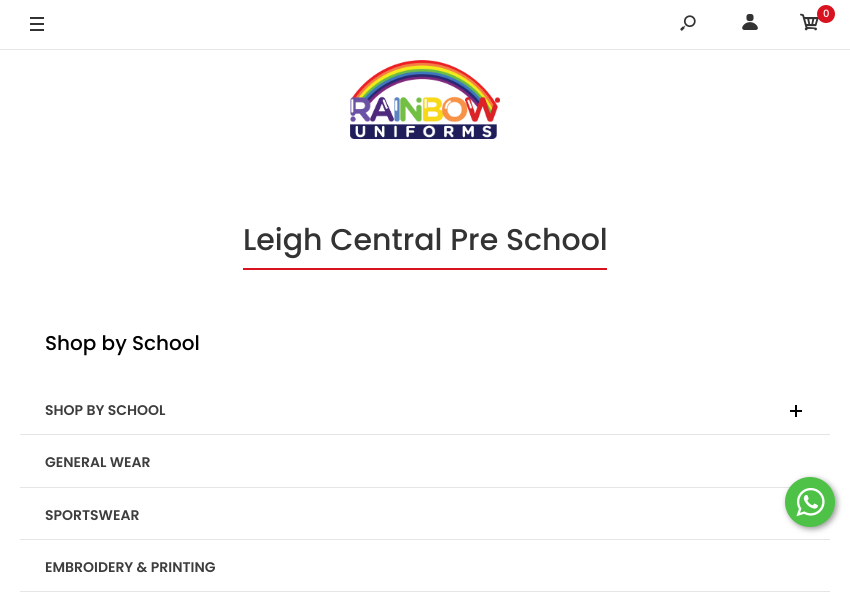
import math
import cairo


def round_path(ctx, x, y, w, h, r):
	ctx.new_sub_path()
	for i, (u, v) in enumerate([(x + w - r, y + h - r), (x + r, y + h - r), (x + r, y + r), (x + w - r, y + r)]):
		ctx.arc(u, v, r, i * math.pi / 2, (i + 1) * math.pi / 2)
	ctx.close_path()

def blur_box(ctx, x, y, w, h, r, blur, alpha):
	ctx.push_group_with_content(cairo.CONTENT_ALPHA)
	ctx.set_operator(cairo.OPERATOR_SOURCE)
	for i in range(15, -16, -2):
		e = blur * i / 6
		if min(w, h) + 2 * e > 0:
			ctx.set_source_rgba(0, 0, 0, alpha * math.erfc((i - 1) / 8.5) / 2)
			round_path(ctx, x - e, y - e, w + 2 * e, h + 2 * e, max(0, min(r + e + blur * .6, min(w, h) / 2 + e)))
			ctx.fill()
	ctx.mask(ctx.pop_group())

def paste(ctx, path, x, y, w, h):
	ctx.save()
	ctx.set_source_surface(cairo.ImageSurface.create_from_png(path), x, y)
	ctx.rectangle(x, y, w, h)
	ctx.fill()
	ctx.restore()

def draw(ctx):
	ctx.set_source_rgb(1, 1, 1)
	ctx.paint()
	ctx.set_source_rgb(0.906, 0.906, 0.906)
	ctx.rectangle(0, 49, 850, 1)
	ctx.fill()
	paste(ctx, 'media/1.png', 800, 13, 19, 18)
	ctx.set_source_rgb(0.851, 0.071, 0.122)
	ctx.arc(826, 14, 9, 0, 2 * math.pi)
	ctx.fill()
	ctx.select_font_face('Poppins Medium')
	ctx.set_font_size(10)
	ctx.set_source_rgb(1, 1, 1)
	ctx.move_to(823, 17)
	ctx.show_text('0')
	ctx.set_source_rgb(0.2, 0.2, 0.2)
	ctx.rectangle(30, 23, 14, 2)
	ctx.rectangle(30, 17, 14, 2)
	ctx.rectangle(30, 29, 14, 2)
	ctx.fill()
	paste(ctx, 'media/2.png', 680, 15, 16, 16)
	paste(ctx, 'media/3.png', 742, 14, 16, 16)
	paste(ctx, 'media/4.png', 350, 60, 150, 79)
	ctx.set_source_rgb(0.851, 0.071, 0.122)
	ctx.rectangle(243, 268, 364, 2)
	ctx.fill()
	ctx.set_font_size(30)
	ctx.set_source_rgb(0.2, 0.2, 0.2)
	ctx.move_to(243, 250)
	ctx.show_text('Leigh Central Pre School')
	ctx.set_font_size(20)
	ctx.set_source_rgb(0, 0, 0)
	ctx.move_to(45, 350)
	ctx.show_text('Shop by School')
	ctx.select_font_face('Poppins SemiBold')
	ctx.set_font_size(14)
	ctx.set_source_rgb(0.239, 0.239, 0.239)
	ctx.move_to(45, 415)
	ctx.show_text('SHOP BY SCHOOL')
	paste(ctx, 'media/5.png', 790, 405, 12, 12)
	ctx.set_source_rgb(0.898, 0.898, 0.898)
	ctx.rectangle(20, 434, 810, 1)
	ctx.fill()
	ctx.set_source_rgb(0.239, 0.239, 0.239)
	ctx.move_to(45, 467)
	ctx.show_text('GENERAL WEAR')
	ctx.set_source_rgb(0.898, 0.898, 0.898)
	ctx.rectangle(20, 487, 770, 1)
	ctx.fill()
	ctx.set_source_rgb(0.239, 0.239, 0.239)
	ctx.move_to(45, 520)
	ctx.show_text('SPORTSWEAR')
	ctx.set_source_rgb(0.898, 0.898, 0.898)
	ctx.rectangle(20, 539, 810, 1)
	ctx.fill()
	ctx.set_source_rgb(0.239, 0.239, 0.239)
	ctx.move_to(45, 572)
	ctx.show_text('EMBROIDERY & PRINTING')
	ctx.set_source_rgb(0.898, 0.898, 0.898)
	ctx.rectangle(20, 591, 810, 1)
	ctx.fill()
	ctx.set_source_rgb(0, 0, 0)
	blur_box(ctx, 787, 479, 50, 50, 25, 3, 0.4)
	ctx.set_source_rgb(0.302, 0.761, 0.278)
	ctx.arc(810, 502, 25, 0, 2 * math.pi)
	ctx.fill()
	paste(ctx, 'media/6.png', 796, 487, 29, 30)


surface = cairo.ImageSurface(cairo.FORMAT_RGB24, 850, 607)
ctx = cairo.Context(surface)
options = cairo.FontOptions()
options.set_hint_metrics(cairo.HINT_METRICS_OFF)
options.set_hint_style(cairo.HINT_STYLE_NONE)
ctx.set_font_options(options)
ctx.set_miter_limit(4)
draw(ctx)
surface.write_to_png('image.png')
